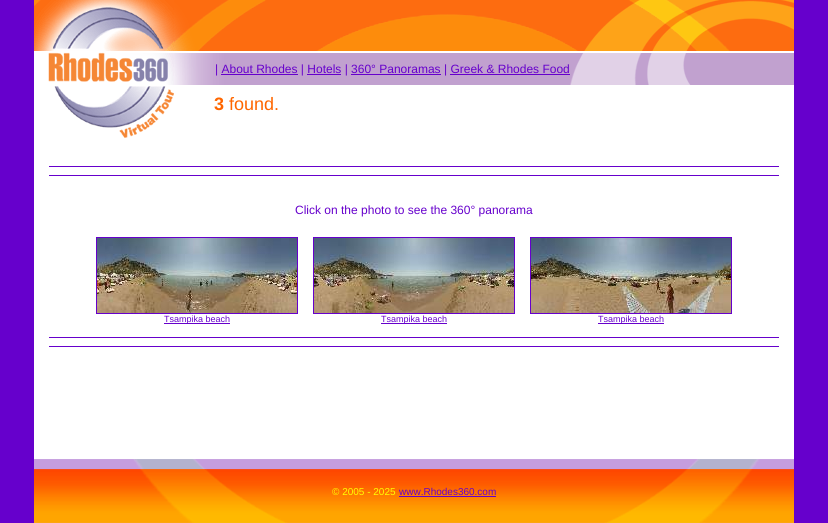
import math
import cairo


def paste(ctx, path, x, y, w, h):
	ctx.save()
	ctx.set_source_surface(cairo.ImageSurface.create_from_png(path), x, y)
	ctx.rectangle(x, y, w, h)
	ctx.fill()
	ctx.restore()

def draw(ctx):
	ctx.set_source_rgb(0.4, 0, 0.8)
	ctx.paint()
	ctx.set_source_rgb(1, 1, 1)
	ctx.rectangle(34, 85, 760, 374)
	ctx.fill()
	paste(ctx, 'media/1.png', 34, 0, 140, 138)
	paste(ctx, 'media/2.png', 174, 0, 620, 85)
	ctx.select_font_face('Liberation Sans')
	ctx.set_font_size(12)
	ctx.set_source_rgb(0.4, 0, 0.8)
	ctx.move_to(215, 73)
	ctx.show_text('| About Rhodes | Hotels | 360° Panoramas | Greek & Rhodes Food')
	ctx.rectangle(221, 74, 77, 1)
	ctx.rectangle(307, 74, 34, 1)
	ctx.rectangle(351, 74, 90, 1)
	ctx.rectangle(450, 74, 120, 1)
	ctx.fill()
	ctx.select_font_face('Liberation Sans', cairo.FONT_SLANT_NORMAL, cairo.FONT_WEIGHT_BOLD)
	ctx.set_font_size(18)
	ctx.set_source_rgb(1, 0.4, 0)
	ctx.move_to(214, 110)
	ctx.show_text('3')
	ctx.select_font_face('Liberation Sans')
	ctx.move_to(229, 110)
	ctx.show_text('found.')
	ctx.set_source_rgb(0.4, 0, 0.8)
	ctx.rectangle(49, 166, 730, 1)
	ctx.fill()
	ctx.rectangle(49, 175, 730, 1)
	ctx.fill()
	ctx.set_font_size(12)
	ctx.move_to(295, 214)
	ctx.show_text('Click on the photo to see the 360° panorama')
	ctx.rectangle(96.5, 237.5, 201, 76)
	ctx.set_line_width(1)
	ctx.stroke()
	paste(ctx, 'media/3.png', 97, 238, 200, 75)
	ctx.rectangle(164, 323, 66, 1)
	ctx.fill()
	ctx.set_font_size(9)
	ctx.move_to(164, 322)
	ctx.show_text('Tsampika beach')
	ctx.rectangle(313.5, 237.5, 201, 76)
	ctx.stroke()
	paste(ctx, 'media/4.png', 314, 238, 200, 75)
	ctx.rectangle(381, 323, 66, 1)
	ctx.fill()
	ctx.move_to(381, 322)
	ctx.show_text('Tsampika beach')
	ctx.rectangle(530.5, 237.5, 201, 76)
	ctx.stroke()
	paste(ctx, 'media/5.png', 531, 238, 200, 75)
	ctx.rectangle(598, 323, 66, 1)
	ctx.fill()
	ctx.move_to(598, 322)
	ctx.show_text('Tsampika beach')
	ctx.rectangle(49, 337, 730, 1)
	ctx.fill()
	ctx.rectangle(49, 346, 730, 1)
	ctx.fill()
	paste(ctx, 'media/6.png', 34, 459, 760, 64)
	ctx.set_font_size(10)
	ctx.set_source_rgb(1, 1, 0)
	ctx.move_to(332, 495)
	ctx.show_text('© 2005 - 2025')
	ctx.set_source_rgb(0.4, 0, 0.8)
	ctx.move_to(399, 495)
	ctx.show_text('www.Rhodes360.com')
	ctx.rectangle(399, 496, 97, 1)
	ctx.fill()


surface = cairo.ImageSurface(cairo.FORMAT_RGB24, 828, 523)
ctx = cairo.Context(surface)
options = cairo.FontOptions()
options.set_hint_metrics(cairo.HINT_METRICS_OFF)
options.set_hint_style(cairo.HINT_STYLE_NONE)
ctx.set_font_options(options)
ctx.set_miter_limit(4)
draw(ctx)
surface.write_to_png('image.png')
